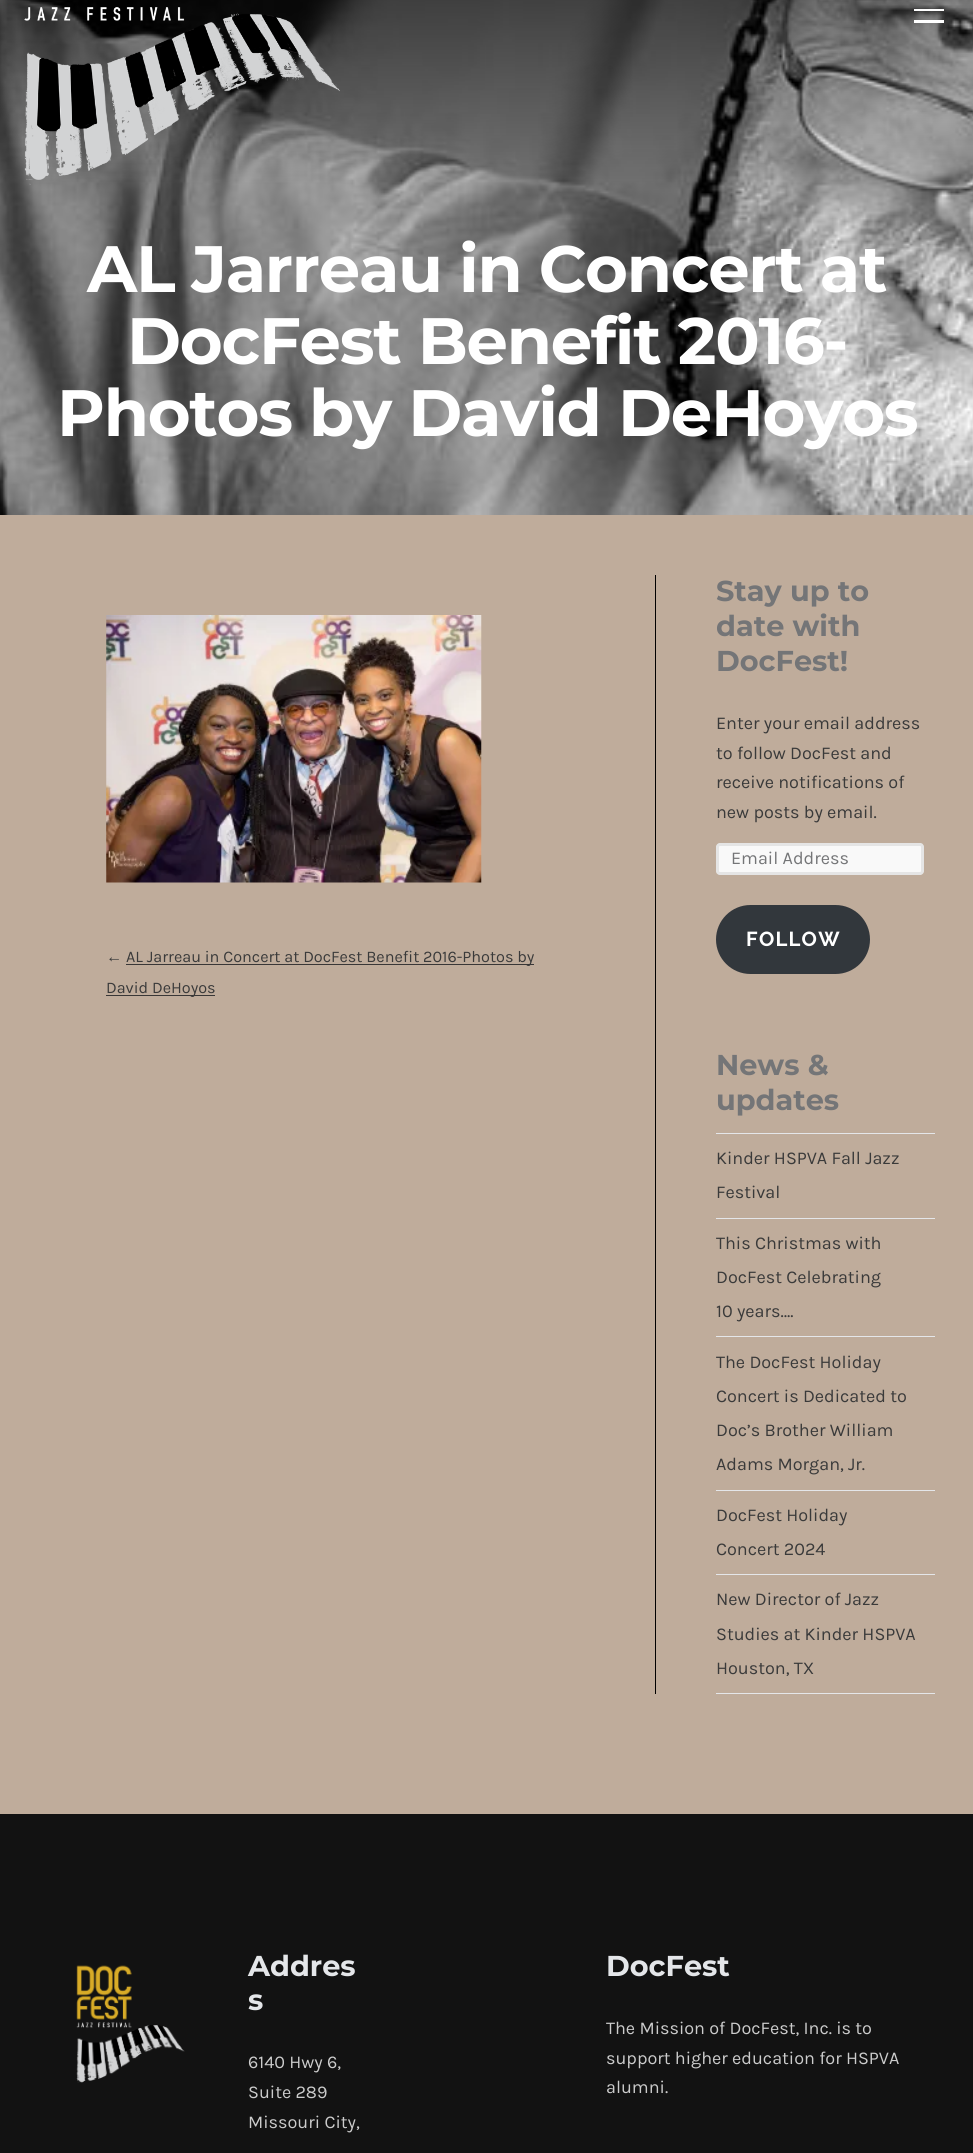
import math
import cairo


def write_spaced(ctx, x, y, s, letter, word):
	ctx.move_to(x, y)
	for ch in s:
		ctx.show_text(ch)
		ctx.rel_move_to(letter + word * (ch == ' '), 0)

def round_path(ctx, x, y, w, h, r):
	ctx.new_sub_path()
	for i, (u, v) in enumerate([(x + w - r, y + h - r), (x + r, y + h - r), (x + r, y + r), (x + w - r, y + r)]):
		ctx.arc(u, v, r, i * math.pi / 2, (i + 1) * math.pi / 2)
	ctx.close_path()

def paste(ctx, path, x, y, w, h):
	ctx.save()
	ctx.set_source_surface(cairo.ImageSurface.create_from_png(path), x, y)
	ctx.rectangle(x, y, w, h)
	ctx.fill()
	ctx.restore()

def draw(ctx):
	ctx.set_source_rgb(0.749, 0.675, 0.608)
	ctx.paint()
	paste(ctx, 'media/1.png', 0, 0, 973, 515)
	paste(ctx, 'media/2.png', 24, 7, 316, 178)
	ctx.set_source_rgb(1, 1, 1)
	ctx.rectangle(914, 9, 30, 2)
	ctx.fill()
	ctx.rectangle(914, 20, 30, 3)
	ctx.fill()
	ctx.select_font_face('Montserrat Thin')
	ctx.set_font_size(65.5)
	for x, y, s in [
		(87, 292, 'AL Jarreau in Concert at'),
		(127, 364, 'DocFest Benefit 2016-'),
		(57, 436, 'Photos by David DeHoyos'),
	]:
		write_spaced(ctx, x, y, s, -1.25, 0)
	paste(ctx, 'media/3.png', 106, 615, 376, 268)
	ctx.select_font_face('Liberation Sans')
	ctx.set_font_size(16.2)
	ctx.set_source_rgb(0.227, 0.227, 0.227)
	ctx.move_to(106, 962)
	ctx.show_text('←')
	ctx.set_source_rgb(0.224, 0.216, 0.216)
	ctx.rectangle(126, 964, 408, 1)
	ctx.fill()
	ctx.select_font_face('Karla')
	ctx.set_source_rgb(0.227, 0.227, 0.227)
	ctx.move_to(126, 962)
	ctx.show_text('AL Jarreau in Concert at DocFest Benefit 2016-Photos by')
	ctx.set_source_rgb(0.224, 0.216, 0.216)
	ctx.rectangle(106, 995, 109, 1)
	ctx.fill()
	ctx.set_source_rgb(0.227, 0.227, 0.227)
	ctx.move_to(106, 993)
	ctx.show_text('David DeHoyos')
	ctx.set_source_rgb(0, 0, 0)
	ctx.rectangle(655, 575, 1, 1119)
	ctx.fill()
	ctx.select_font_face('Montserrat Thin')
	ctx.set_font_size(28.75)
	ctx.set_source_rgb(0.455, 0.459, 0.467)
	for x, y, s in [
		(716, 601, 'Stay up to'),
		(716, 636, 'date with'),
		(716, 671, 'DocFest!'),
	]:
		ctx.move_to(x, y)
		ctx.show_text(s)
	ctx.select_font_face('Karla')
	ctx.set_font_size(18)
	ctx.set_source_rgb(0.227, 0.227, 0.227)
	for x, y, s in [
		(716, 729, 'Enter your email address'),
		(716, 759, 'to follow DocFest and'),
		(716, 788, 'receive notifications of'),
		(716, 818, 'new posts by email.'),
	]:
		ctx.move_to(x, y)
		ctx.show_text(s)
	ctx.set_source_rgb(0.976, 0.976, 0.976)
	round_path(ctx, 716, 843, 208, 32, 4)
	ctx.fill()
	round_path(ctx, 717.5, 844.5, 205, 29, 2.5)
	ctx.set_source_rgba(0, 0, 0, 0.08)
	ctx.set_line_width(3)
	ctx.stroke()
	ctx.set_source_rgb(0.455, 0.459, 0.467)
	ctx.move_to(731, 864)
	ctx.show_text('Email Address')
	ctx.set_source_rgb(0.196, 0.216, 0.235)
	round_path(ctx, 716, 905, 154, 69, 34.5)
	ctx.fill()
	ctx.select_font_face('Raleway', cairo.FONT_SLANT_NORMAL, cairo.FONT_WEIGHT_BOLD)
	ctx.set_font_size(20.25)
	ctx.set_source_rgb(1, 1, 1)
	write_spaced(ctx, 746, 946, 'FOLLOW', 1.25, 0)
	ctx.select_font_face('Montserrat Thin')
	ctx.set_font_size(28.75)
	ctx.set_source_rgb(0.455, 0.459, 0.467)
	ctx.move_to(716, 1075)
	ctx.show_text('News &')
	ctx.move_to(716, 1110)
	ctx.show_text('updates')
	ctx.set_source_rgb(0.894, 0.902, 0.914)
	ctx.rectangle(716, 1133, 219, 1)
	ctx.fill()
	ctx.select_font_face('Karla')
	ctx.set_font_size(18)
	ctx.set_source_rgb(0.227, 0.227, 0.227)
	ctx.move_to(716, 1164)
	ctx.show_text('Kinder HSPVA Fall Jazz')
	ctx.move_to(716, 1198)
	ctx.show_text('Festival')
	ctx.set_source_rgb(0.894, 0.902, 0.914)
	ctx.rectangle(716, 1218, 219, 1)
	ctx.fill()
	ctx.set_source_rgb(0.227, 0.227, 0.227)
	for x, y, s in [
		(716, 1249, 'This Christmas with'),
		(716, 1283, 'DocFest Celebrating'),
		(716, 1317, '10 years….'),
	]:
		ctx.move_to(x, y)
		ctx.show_text(s)
	ctx.set_source_rgb(0.894, 0.902, 0.914)
	ctx.rectangle(716, 1336, 219, 1)
	ctx.fill()
	ctx.set_source_rgb(0.227, 0.227, 0.227)
	for x, y, s in [
		(716, 1368, 'The DocFest Holiday'),
		(716, 1402, 'Concert is Dedicated to'),
		(716, 1436, 'Doc’s Brother William'),
		(716, 1470, 'Adams Morgan, Jr.'),
	]:
		ctx.move_to(x, y)
		ctx.show_text(s)
	ctx.set_source_rgb(0.894, 0.902, 0.914)
	ctx.rectangle(716, 1490, 219, 1)
	ctx.fill()
	ctx.set_source_rgb(0.227, 0.227, 0.227)
	ctx.move_to(716, 1521)
	ctx.show_text('DocFest Holiday')
	ctx.move_to(716, 1555)
	ctx.show_text('Concert 2024')
	ctx.set_source_rgb(0.894, 0.902, 0.914)
	ctx.rectangle(716, 1574, 219, 1)
	ctx.fill()
	ctx.rectangle(716, 1693, 219, 1)
	ctx.fill()
	ctx.set_source_rgb(0.227, 0.227, 0.227)
	for x, y, s in [
		(716, 1605, 'New Director of Jazz'),
		(716, 1640, 'Studies at Kinder HSPVA'),
		(716, 1674, 'Houston, TX'),
	]:
		ctx.move_to(x, y)
		ctx.show_text(s)
	ctx.set_source_rgb(0.071, 0.071, 0.071)
	ctx.rectangle(0, 1814, 973, 339)
	ctx.fill()
	paste(ctx, 'media/4.png', 76, 1965, 109, 118)
	ctx.select_font_face('Montserrat Thin')
	ctx.set_font_size(28.75)
	ctx.set_source_rgb(0.894, 0.902, 0.914)
	ctx.move_to(248, 1976)
	ctx.show_text('Addres')
	ctx.move_to(248, 2010)
	ctx.show_text('s')
	ctx.select_font_face('Karla')
	ctx.set_font_size(18)
	ctx.set_source_rgb(0.8, 0.8, 0.8)
	for x, y, s in [
		(248, 2068, '6140 Hwy 6,'),
		(248, 2098, 'Suite 289'),
		(248, 2128, 'Missouri City,'),
	]:
		ctx.move_to(x, y)
		ctx.show_text(s)
	ctx.select_font_face('Montserrat Thin')
	ctx.set_font_size(28.75)
	ctx.set_source_rgb(0.894, 0.902, 0.914)
	ctx.move_to(606, 1976)
	ctx.show_text('DocFest')
	ctx.select_font_face('Karla')
	ctx.set_font_size(18)
	ctx.set_source_rgb(0.8, 0.8, 0.8)
	for x, y, s in [
		(606, 2034, 'The Mission of DocFest, Inc. is to'),
		(606, 2064, 'support higher education for HSPVA'),
		(606, 2093, 'alumni.'),
	]:
		ctx.move_to(x, y)
		ctx.show_text(s)


surface = cairo.ImageSurface(cairo.FORMAT_RGB24, 973, 2153)
ctx = cairo.Context(surface)
options = cairo.FontOptions()
options.set_hint_metrics(cairo.HINT_METRICS_OFF)
options.set_hint_style(cairo.HINT_STYLE_NONE)
ctx.set_font_options(options)
ctx.set_miter_limit(4)
draw(ctx)
surface.write_to_png('image.png')
